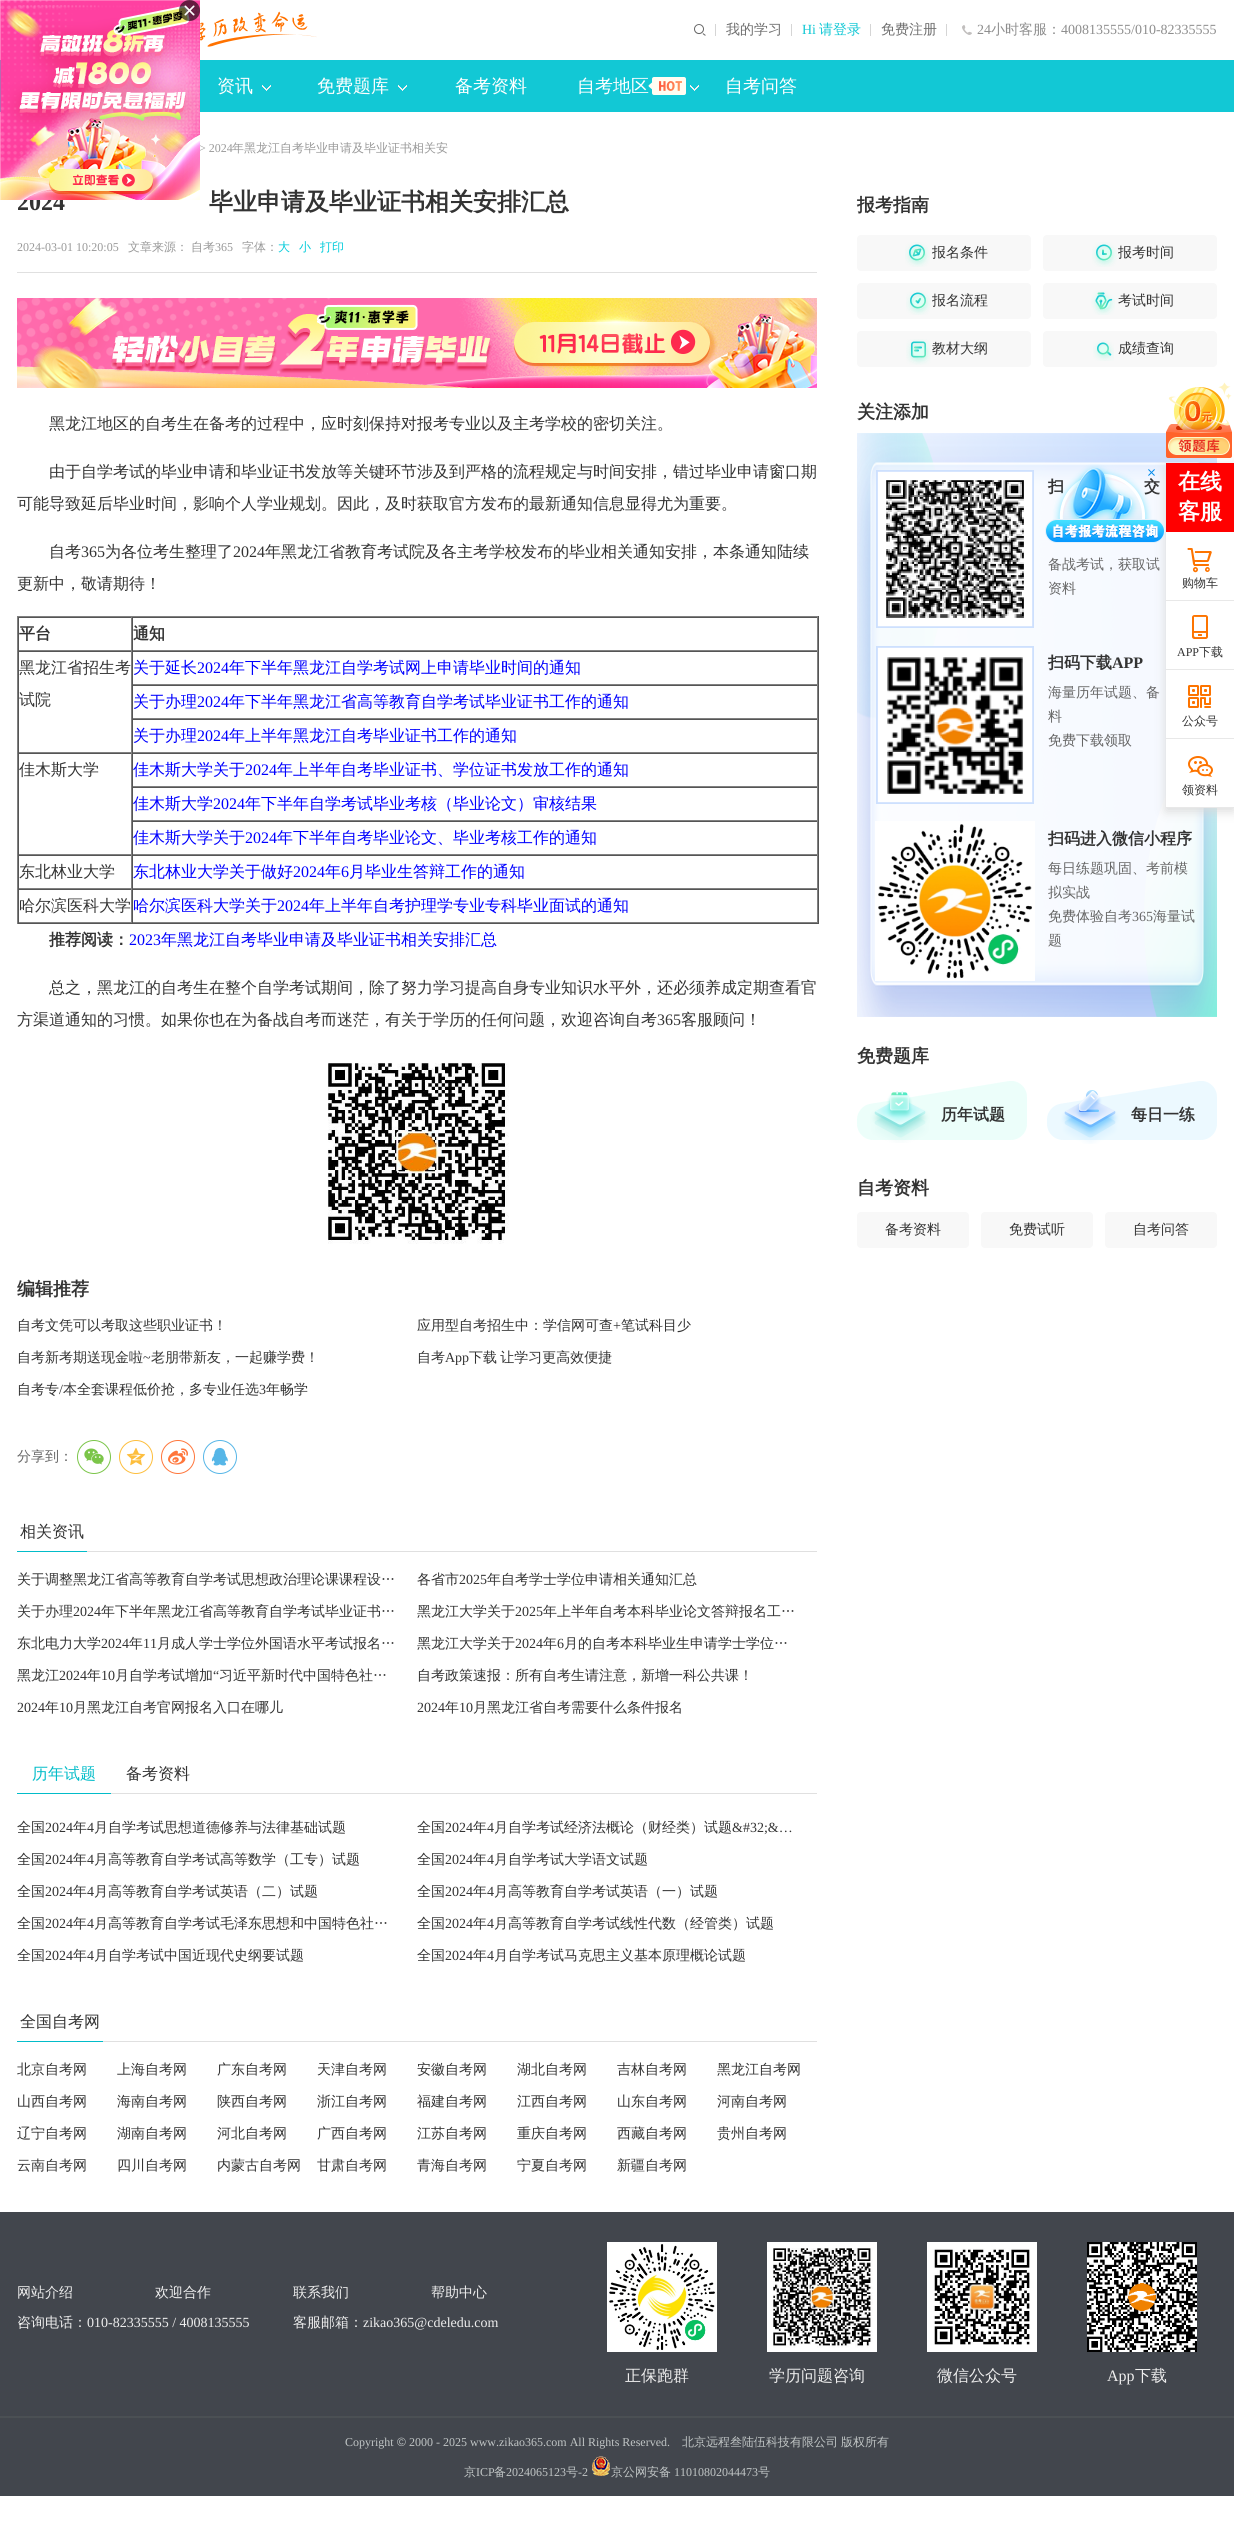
import math
import cairo


def write_spaced(ctx, x, y, s, letter, word):
	ctx.move_to(x, y)
	for ch in s:
		ctx.show_text(ch)
		ctx.rel_move_to(letter + word * (ch == ' '), 0)

def round_path(ctx, x, y, w, h, r):
	ctx.new_sub_path()
	for i, (u, v) in enumerate([(x + w - r, y + h - r), (x + r, y + h - r), (x + r, y + r), (x + w - r, y + r)]):
		ctx.arc(u, v, r, i * math.pi / 2, (i + 1) * math.pi / 2)
	ctx.close_path()

def blur_box(ctx, x, y, w, h, r, blur, alpha):
	ctx.push_group_with_content(cairo.CONTENT_ALPHA)
	ctx.set_operator(cairo.OPERATOR_SOURCE)
	for i in range(15, -16, -2):
		e = blur * i / 6
		if min(w, h) + 2 * e > 0:
			ctx.set_source_rgba(0, 0, 0, alpha * math.erfc((i - 1) / 8.5) / 2)
			round_path(ctx, x - e, y - e, w + 2 * e, h + 2 * e, max(0, min(r + e + blur * .6, min(w, h) / 2 + e)))
			ctx.fill()
	ctx.mask(ctx.pop_group())

def paste(ctx, path, x, y, w, h):
	ctx.save()
	ctx.set_source_surface(cairo.ImageSurface.create_from_png(path), x, y)
	ctx.rectangle(x, y, w, h)
	ctx.fill()
	ctx.restore()

def draw(ctx):
	ctx.set_source_rgb(1, 1, 1)
	ctx.paint()
	ctx.set_source_rgb(0.071, 0.784, 0.835)
	ctx.rectangle(0, 60, 1234, 52)
	ctx.fill()
	ctx.select_font_face('Liberation Serif')
	ctx.set_font_size(12)
	ctx.set_source_rgb(0.6, 0.6, 0.6)
	ctx.move_to(199, 152)
	ctx.show_text('> 2024')
	ctx.select_font_face('Liberation Serif', cairo.FONT_SLANT_NORMAL, cairo.FONT_WEIGHT_BOLD)
	ctx.set_font_size(24)
	ctx.set_source_rgb(0.2, 0.2, 0.2)
	ctx.move_to(17, 210)
	ctx.show_text('2024')
	paste(ctx, 'media/1.png', 0, 0, 200, 200)
	paste(ctx, 'media/2.png', 179, 0, 21, 21)
	paste(ctx, 'media/3.png', 200, 11, 117, 36)
	ctx.set_source_rgb(0.835, 0.835, 0.835)
	ctx.rectangle(715, 24, 1, 12)
	ctx.fill()
	paste(ctx, 'media/4.png', 694, 24, 12, 12)
	ctx.rectangle(791, 24, 1, 12)
	ctx.fill()
	ctx.select_font_face('WenQuanYi Zen Hei Medium')
	ctx.set_font_size(14)
	ctx.set_source_rgb(0.431, 0.431, 0.431)
	ctx.move_to(726, 34)
	ctx.show_text('我的学习')
	ctx.set_source_rgb(0.835, 0.835, 0.835)
	ctx.rectangle(870, 24, 1, 12)
	ctx.fill()
	ctx.select_font_face('Liberation Serif')
	ctx.set_source_rgb(0.071, 0.784, 0.835)
	ctx.move_to(802, 34)
	ctx.show_text('Hi')
	ctx.select_font_face('WenQuanYi Zen Hei Medium')
	ctx.move_to(819, 34)
	ctx.show_text('请登录')
	ctx.set_source_rgb(0.835, 0.835, 0.835)
	ctx.rectangle(946, 24, 1, 12)
	ctx.fill()
	ctx.set_source_rgb(0.431, 0.431, 0.431)
	ctx.move_to(881, 34)
	ctx.show_text('免费注册')
	paste(ctx, 'media/5.png', 962, 25, 10, 10)
	ctx.select_font_face('Liberation Serif')
	ctx.set_source_rgb(0.557, 0.557, 0.557)
	ctx.move_to(977, 34)
	ctx.show_text('24')
	ctx.select_font_face('WenQuanYi Zen Hei Medium')
	ctx.move_to(991, 34)
	ctx.show_text('小时客服：')
	ctx.select_font_face('Liberation Serif')
	ctx.move_to(1061, 34)
	ctx.show_text('4008135555/010-82335555')
	ctx.select_font_face('WenQuanYi Zen Hei Medium')
	ctx.set_font_size(18)
	ctx.set_source_rgb(1, 1, 1)
	ctx.move_to(217, 92)
	ctx.show_text('资讯')
	paste(ctx, 'media/6.png', 262, 85, 9, 6)
	ctx.move_to(317, 92)
	ctx.show_text('免费题库')
	paste(ctx, 'media/6.png', 398, 85, 9, 6)
	ctx.move_to(455, 92)
	ctx.show_text('备考资料')
	paste(ctx, 'media/7.png', 648, 77, 38, 18)
	ctx.move_to(577, 92)
	ctx.show_text('自考地区')
	paste(ctx, 'media/6.png', 690, 85, 9, 6)
	ctx.move_to(725, 92)
	ctx.show_text('自考问答')
	ctx.set_font_size(12)
	ctx.set_source_rgb(0.6, 0.6, 0.6)
	ctx.move_to(232, 152)
	ctx.show_text('年黑龙江自考毕业申请及毕业证书相关安')
	ctx.select_font_face('WenQuanYi Zen Hei', cairo.FONT_SLANT_NORMAL, cairo.FONT_WEIGHT_BOLD)
	ctx.set_font_size(24)
	ctx.set_source_rgb(0.2, 0.2, 0.2)
	ctx.move_to(209, 210)
	ctx.show_text('毕业申请及毕业证书相关安排汇总')
	ctx.set_source_rgb(0.878, 0.878, 0.878)
	ctx.rectangle(17, 272, 800, 1)
	ctx.fill()
	ctx.select_font_face('Liberation Serif')
	ctx.set_font_size(12)
	ctx.set_source_rgb(0.6, 0.6, 0.6)
	ctx.move_to(17, 251)
	ctx.show_text('2024-03-01 10:20:05')
	ctx.select_font_face('WenQuanYi Zen Hei Medium')
	ctx.move_to(128, 251)
	ctx.show_text('文章来源：')
	ctx.move_to(191, 251)
	ctx.show_text('自考')
	ctx.select_font_face('Liberation Serif')
	ctx.move_to(215, 251)
	ctx.show_text('365')
	ctx.select_font_face('WenQuanYi Zen Hei Medium')
	ctx.move_to(242, 251)
	ctx.show_text('字体：')
	ctx.set_source_rgb(0, 0.796, 0.855)
	for x, y, s in [
		(278, 251, '大'),
		(299, 251, '小'),
		(320, 251, '打印'),
	]:
		ctx.move_to(x, y)
		ctx.show_text(s)
	paste(ctx, 'media/8.png', 17, 298, 800, 90)
	ctx.set_font_size(16)
	ctx.set_source_rgb(0.2, 0.2, 0.2)
	for x, y, s in [
		(49, 429, '黑龙江地区的自考生在备考的过程中，应时刻保持对报考专业以及主考学校的密切关注。'),
		(49, 477, '由于自学考试的毕业申请和毕业证书发放等关键环节涉及到严格的流程规定与时间安排，错过毕业申请窗口期'),
		(17, 509, '可能导致延后毕业时间，影响个人学业规划。因此，及时获取官方发布的最新通知信息显得尤为重要。'),
		(49, 557, '自考'),
	]:
		ctx.move_to(x, y)
		ctx.show_text(s)
	ctx.select_font_face('Liberation Serif')
	ctx.move_to(81, 557)
	ctx.show_text('365')
	ctx.select_font_face('WenQuanYi Zen Hei Medium')
	ctx.move_to(105, 557)
	ctx.show_text('为各位考生整理了')
	ctx.select_font_face('Liberation Serif')
	ctx.move_to(233, 557)
	ctx.show_text('2024')
	ctx.select_font_face('WenQuanYi Zen Hei Medium')
	ctx.move_to(265, 557)
	ctx.show_text('年黑龙江省教育考试院及各主考学校发布的毕业相关通知安排，本条通知陆续')
	ctx.move_to(17, 589)
	ctx.show_text('更新中，敬请期待！')
	ctx.set_source_rgb(0.502, 0.502, 0.502)
	ctx.rectangle(17, 616, 802, 1)
	ctx.fill()
	ctx.set_source_rgb(0.333, 0.333, 0.333)
	ctx.rectangle(818, 616, 1, 308)
	ctx.rectangle(17, 923, 802, 1)
	ctx.fill()
	ctx.set_source_rgb(0.502, 0.502, 0.502)
	ctx.rectangle(17, 616, 1, 308)
	ctx.fill()
	ctx.set_source_rgb(0.333, 0.333, 0.333)
	ctx.rectangle(18, 617, 800, 1)
	ctx.fill()
	ctx.set_source_rgb(0.502, 0.502, 0.502)
	ctx.rectangle(131, 617, 1, 34)
	ctx.rectangle(18, 650, 114, 1)
	ctx.fill()
	ctx.set_source_rgb(0.333, 0.333, 0.333)
	ctx.rectangle(18, 617, 1, 34)
	ctx.fill()
	ctx.select_font_face('WenQuanYi Zen Hei', cairo.FONT_SLANT_NORMAL, cairo.FONT_WEIGHT_BOLD)
	ctx.set_source_rgb(0.2, 0.2, 0.2)
	ctx.move_to(19, 639)
	ctx.show_text('平台')
	ctx.set_source_rgb(0.502, 0.502, 0.502)
	ctx.rectangle(817, 617, 1, 34)
	ctx.rectangle(132, 650, 686, 1)
	ctx.fill()
	ctx.set_source_rgb(0.333, 0.333, 0.333)
	ctx.rectangle(132, 617, 1, 34)
	ctx.fill()
	ctx.set_source_rgb(0.2, 0.2, 0.2)
	ctx.move_to(133, 639)
	ctx.show_text('通知')
	ctx.set_source_rgb(0.333, 0.333, 0.333)
	ctx.rectangle(18, 651, 800, 1)
	ctx.fill()
	ctx.set_source_rgb(0.502, 0.502, 0.502)
	ctx.rectangle(131, 651, 1, 102)
	ctx.rectangle(18, 752, 114, 1)
	ctx.fill()
	ctx.set_source_rgb(0.333, 0.333, 0.333)
	ctx.rectangle(18, 651, 1, 102)
	ctx.fill()
	ctx.select_font_face('WenQuanYi Zen Hei Medium')
	ctx.set_source_rgb(0.2, 0.2, 0.2)
	ctx.move_to(19, 673)
	ctx.show_text('黑龙江省招生考')
	ctx.move_to(19, 705)
	ctx.show_text('试院')
	ctx.set_source_rgb(0.502, 0.502, 0.502)
	ctx.rectangle(817, 651, 1, 34)
	ctx.rectangle(132, 684, 686, 1)
	ctx.fill()
	ctx.set_source_rgb(0.333, 0.333, 0.333)
	ctx.rectangle(132, 651, 1, 34)
	ctx.fill()
	ctx.set_source_rgb(0, 0, 1)
	ctx.move_to(133, 673)
	ctx.show_text('关于延长')
	ctx.select_font_face('Liberation Serif')
	ctx.move_to(197, 673)
	ctx.show_text('2024')
	ctx.select_font_face('WenQuanYi Zen Hei Medium')
	ctx.move_to(229, 673)
	ctx.show_text('年下半年黑龙江自学考试网上申请毕业时间的通知')
	ctx.set_source_rgb(0.333, 0.333, 0.333)
	ctx.rectangle(132, 685, 686, 1)
	ctx.fill()
	ctx.set_source_rgb(0.502, 0.502, 0.502)
	ctx.rectangle(817, 685, 1, 34)
	ctx.rectangle(132, 718, 686, 1)
	ctx.fill()
	ctx.set_source_rgb(0.333, 0.333, 0.333)
	ctx.rectangle(132, 685, 1, 34)
	ctx.fill()
	ctx.set_source_rgb(0, 0, 1)
	ctx.move_to(133, 707)
	ctx.show_text('关于办理')
	ctx.select_font_face('Liberation Serif')
	ctx.move_to(197, 707)
	ctx.show_text('2024')
	ctx.select_font_face('WenQuanYi Zen Hei Medium')
	ctx.move_to(229, 707)
	ctx.show_text('年下半年黑龙江省高等教育自学考试毕业证书工作的通知')
	ctx.set_source_rgb(0.333, 0.333, 0.333)
	ctx.rectangle(132, 719, 686, 1)
	ctx.fill()
	ctx.set_source_rgb(0.502, 0.502, 0.502)
	ctx.rectangle(817, 719, 1, 34)
	ctx.rectangle(132, 752, 686, 1)
	ctx.fill()
	ctx.set_source_rgb(0.333, 0.333, 0.333)
	ctx.rectangle(132, 719, 1, 34)
	ctx.fill()
	ctx.set_source_rgb(0, 0, 1)
	ctx.move_to(133, 741)
	ctx.show_text('关于办理')
	ctx.select_font_face('Liberation Serif')
	ctx.move_to(197, 741)
	ctx.show_text('2024')
	ctx.select_font_face('WenQuanYi Zen Hei Medium')
	ctx.move_to(229, 741)
	ctx.show_text('年上半年黑龙江自考毕业证书工作的通知')
	ctx.set_source_rgb(0.333, 0.333, 0.333)
	ctx.rectangle(18, 753, 800, 1)
	ctx.fill()
	ctx.set_source_rgb(0.502, 0.502, 0.502)
	ctx.rectangle(131, 753, 1, 102)
	ctx.rectangle(18, 854, 114, 1)
	ctx.fill()
	ctx.set_source_rgb(0.333, 0.333, 0.333)
	ctx.rectangle(18, 753, 1, 102)
	ctx.fill()
	ctx.set_source_rgb(0.2, 0.2, 0.2)
	ctx.move_to(19, 775)
	ctx.show_text('佳木斯大学')
	ctx.set_source_rgb(0.502, 0.502, 0.502)
	ctx.rectangle(817, 753, 1, 34)
	ctx.rectangle(132, 786, 686, 1)
	ctx.fill()
	ctx.set_source_rgb(0.333, 0.333, 0.333)
	ctx.rectangle(132, 753, 1, 34)
	ctx.fill()
	ctx.set_source_rgb(0, 0, 1)
	ctx.move_to(133, 775)
	ctx.show_text('佳木斯大学关于')
	ctx.select_font_face('Liberation Serif')
	ctx.move_to(245, 775)
	ctx.show_text('2024')
	ctx.select_font_face('WenQuanYi Zen Hei Medium')
	ctx.move_to(277, 775)
	ctx.show_text('年上半年自考毕业证书、学位证书发放工作的通知')
	ctx.set_source_rgb(0.333, 0.333, 0.333)
	ctx.rectangle(132, 787, 686, 1)
	ctx.fill()
	ctx.set_source_rgb(0.502, 0.502, 0.502)
	ctx.rectangle(817, 787, 1, 34)
	ctx.rectangle(132, 820, 686, 1)
	ctx.fill()
	ctx.set_source_rgb(0.333, 0.333, 0.333)
	ctx.rectangle(132, 787, 1, 34)
	ctx.fill()
	ctx.set_source_rgb(0, 0, 1)
	ctx.move_to(133, 809)
	ctx.show_text('佳木斯大学')
	ctx.select_font_face('Liberation Serif')
	ctx.move_to(213, 809)
	ctx.show_text('2024')
	ctx.select_font_face('WenQuanYi Zen Hei Medium')
	ctx.move_to(245, 809)
	ctx.show_text('年下半年自学考试毕业考核（毕业论文）审核结果')
	ctx.set_source_rgb(0.333, 0.333, 0.333)
	ctx.rectangle(132, 821, 686, 1)
	ctx.fill()
	ctx.set_source_rgb(0.502, 0.502, 0.502)
	ctx.rectangle(817, 821, 1, 34)
	ctx.rectangle(132, 854, 686, 1)
	ctx.fill()
	ctx.set_source_rgb(0.333, 0.333, 0.333)
	ctx.rectangle(132, 821, 1, 34)
	ctx.fill()
	ctx.set_source_rgb(0, 0, 1)
	ctx.move_to(133, 843)
	ctx.show_text('佳木斯大学关于')
	ctx.select_font_face('Liberation Serif')
	ctx.move_to(245, 843)
	ctx.show_text('2024')
	ctx.select_font_face('WenQuanYi Zen Hei Medium')
	ctx.move_to(277, 843)
	ctx.show_text('年下半年自考毕业论文、毕业考核工作的通知')
	ctx.set_source_rgb(0.333, 0.333, 0.333)
	ctx.rectangle(18, 855, 800, 1)
	ctx.fill()
	ctx.set_source_rgb(0.502, 0.502, 0.502)
	ctx.rectangle(131, 855, 1, 34)
	ctx.rectangle(18, 888, 114, 1)
	ctx.fill()
	ctx.set_source_rgb(0.333, 0.333, 0.333)
	ctx.rectangle(18, 855, 1, 34)
	ctx.fill()
	ctx.set_source_rgb(0.2, 0.2, 0.2)
	ctx.move_to(19, 877)
	ctx.show_text('东北林业大学')
	ctx.set_source_rgb(0.502, 0.502, 0.502)
	ctx.rectangle(817, 855, 1, 34)
	ctx.rectangle(132, 888, 686, 1)
	ctx.fill()
	ctx.set_source_rgb(0.333, 0.333, 0.333)
	ctx.rectangle(132, 855, 1, 34)
	ctx.fill()
	ctx.set_source_rgb(0, 0, 1)
	ctx.move_to(133, 877)
	ctx.show_text('东北林业大学关于做好')
	ctx.select_font_face('Liberation Serif')
	ctx.move_to(293, 877)
	ctx.show_text('2024')
	ctx.select_font_face('WenQuanYi Zen Hei Medium')
	ctx.move_to(325, 877)
	ctx.show_text('年')
	ctx.select_font_face('Liberation Serif')
	ctx.move_to(341, 877)
	ctx.show_text('6')
	ctx.select_font_face('WenQuanYi Zen Hei Medium')
	ctx.move_to(349, 877)
	ctx.show_text('月毕业生答辩工作的通知')
	ctx.set_source_rgb(0.333, 0.333, 0.333)
	ctx.rectangle(18, 889, 800, 1)
	ctx.fill()
	ctx.set_source_rgb(0.502, 0.502, 0.502)
	ctx.rectangle(131, 889, 1, 34)
	ctx.rectangle(18, 922, 114, 1)
	ctx.fill()
	ctx.set_source_rgb(0.333, 0.333, 0.333)
	ctx.rectangle(18, 889, 1, 34)
	ctx.fill()
	ctx.set_source_rgb(0.2, 0.2, 0.2)
	ctx.move_to(19, 911)
	ctx.show_text('哈尔滨医科大学')
	ctx.set_source_rgb(0.502, 0.502, 0.502)
	ctx.rectangle(817, 889, 1, 34)
	ctx.rectangle(132, 922, 686, 1)
	ctx.fill()
	ctx.set_source_rgb(0.333, 0.333, 0.333)
	ctx.rectangle(132, 889, 1, 34)
	ctx.fill()
	ctx.set_source_rgb(0, 0, 1)
	ctx.move_to(133, 911)
	ctx.show_text('哈尔滨医科大学关于')
	ctx.select_font_face('Liberation Serif')
	ctx.move_to(277, 911)
	ctx.show_text('2024')
	ctx.select_font_face('WenQuanYi Zen Hei Medium')
	ctx.move_to(309, 911)
	ctx.show_text('年上半年自考护理学专业专科毕业面试的通知')
	ctx.select_font_face('WenQuanYi Zen Hei', cairo.FONT_SLANT_NORMAL, cairo.FONT_WEIGHT_BOLD)
	ctx.set_source_rgb(0.2, 0.2, 0.2)
	ctx.move_to(49, 945)
	ctx.show_text('推荐阅读：')
	ctx.select_font_face('Liberation Serif')
	ctx.set_source_rgb(0, 0, 1)
	ctx.move_to(129, 945)
	ctx.show_text('2023')
	ctx.select_font_face('WenQuanYi Zen Hei Medium')
	ctx.move_to(161, 945)
	ctx.show_text('年黑龙江自考毕业申请及毕业证书相关安排汇总')
	ctx.set_source_rgb(0.2, 0.2, 0.2)
	ctx.move_to(49, 993)
	ctx.show_text('总之，黑龙江的自考生在整个自学考试期间，除了努力学习提高自身专业知识水平外，还必须养成定期查看官')
	ctx.move_to(17, 1025)
	ctx.show_text('方渠道通知的习惯。如果你也在为备战自考而迷茫，有关于学历的任何问题，欢迎咨询自考')
	ctx.select_font_face('Liberation Serif')
	ctx.move_to(657, 1025)
	ctx.show_text('365')
	ctx.select_font_face('WenQuanYi Zen Hei Medium')
	ctx.move_to(681, 1025)
	ctx.show_text('客服顾问！')
	paste(ctx, 'media/9.png', 328, 1063, 181, 181)
	ctx.select_font_face('WenQuanYi Zen Hei', cairo.FONT_SLANT_NORMAL, cairo.FONT_WEIGHT_BOLD)
	ctx.set_font_size(18)
	ctx.move_to(17, 1295)
	ctx.show_text('编辑推荐')
	ctx.select_font_face('WenQuanYi Zen Hei Medium')
	ctx.set_font_size(14)
	ctx.move_to(17, 1330)
	ctx.show_text('自考文凭可以考取这些职业证书！')
	ctx.move_to(417, 1330)
	ctx.show_text('应用型自考招生中：学信网可查')
	ctx.select_font_face('Liberation Serif')
	ctx.move_to(613, 1330)
	ctx.show_text('+')
	ctx.select_font_face('WenQuanYi Zen Hei Medium')
	ctx.move_to(621, 1330)
	ctx.show_text('笔试科目少')
	ctx.move_to(17, 1362)
	ctx.show_text('自考新考期送现金啦')
	ctx.select_font_face('Liberation Serif')
	ctx.move_to(143, 1362)
	ctx.show_text('~')
	ctx.select_font_face('WenQuanYi Zen Hei Medium')
	ctx.move_to(151, 1362)
	ctx.show_text('老朋带新友，一起赚学费！')
	ctx.move_to(417, 1362)
	ctx.show_text('自考')
	ctx.select_font_face('Liberation Serif')
	ctx.move_to(445, 1362)
	ctx.show_text('App')
	ctx.select_font_face('WenQuanYi Zen Hei Medium')
	write_spaced(ctx, 469, 1362, '下载 让学习更高效便捷', 0, -1)
	ctx.move_to(17, 1394)
	ctx.show_text('自考专')
	ctx.select_font_face('Liberation Serif')
	ctx.move_to(59, 1394)
	ctx.show_text('/')
	ctx.select_font_face('WenQuanYi Zen Hei Medium')
	ctx.move_to(63, 1394)
	ctx.show_text('本全套课程低价抢，多专业任选')
	ctx.select_font_face('Liberation Serif')
	ctx.move_to(259, 1394)
	ctx.show_text('3')
	ctx.select_font_face('WenQuanYi Zen Hei Medium')
	ctx.move_to(266, 1394)
	ctx.show_text('年畅学')
	ctx.set_source_rgb(0.4, 0.4, 0.4)
	ctx.move_to(17, 1461)
	ctx.show_text('分享到：')
	ctx.new_path()
	ctx.arc(94, 1457, 16.5, 0, 2 * math.pi)
	ctx.set_source_rgb(0.482, 0.773, 0.286)
	ctx.set_line_width(1)
	ctx.stroke()
	paste(ctx, 'media/10.png', 84, 1448, 20, 17)
	ctx.arc(136, 1457, 16.5, 0, 2 * math.pi)
	ctx.set_source_rgb(0.992, 0.745, 0.239)
	ctx.stroke()
	paste(ctx, 'media/11.png', 126, 1447, 20, 19)
	ctx.arc(178, 1457, 16.5, 0, 2 * math.pi)
	ctx.set_source_rgb(1, 0.463, 0.231)
	ctx.stroke()
	paste(ctx, 'media/12.png', 168, 1448, 20, 17)
	ctx.arc(220, 1457, 16.5, 0, 2 * math.pi)
	ctx.set_source_rgb(0.337, 0.714, 0.906)
	ctx.stroke()
	paste(ctx, 'media/13.png', 211, 1447, 17, 19)
	ctx.set_source_rgb(0.878, 0.878, 0.878)
	ctx.rectangle(87, 1551, 730, 1)
	ctx.fill()
	ctx.set_source_rgb(0.008, 0.737, 0.788)
	ctx.rectangle(17, 1551, 70, 1)
	ctx.fill()
	ctx.set_font_size(16)
	ctx.set_source_rgb(0.2, 0.2, 0.2)
	ctx.move_to(20, 1537)
	ctx.show_text('相关资讯')
	ctx.set_font_size(14)
	ctx.move_to(17, 1584)
	ctx.show_text('关于调整黑龙江省高等教育自学考试思想政治理论课课程设…')
	ctx.move_to(417, 1584)
	ctx.show_text('各省市')
	ctx.select_font_face('Liberation Serif')
	ctx.move_to(459, 1584)
	ctx.show_text('2025')
	ctx.select_font_face('WenQuanYi Zen Hei Medium')
	ctx.move_to(487, 1584)
	ctx.show_text('年自考学士学位申请相关通知汇总')
	ctx.move_to(17, 1616)
	ctx.show_text('关于办理')
	ctx.select_font_face('Liberation Serif')
	ctx.move_to(73, 1616)
	ctx.show_text('2024')
	ctx.select_font_face('WenQuanYi Zen Hei Medium')
	ctx.move_to(101, 1616)
	ctx.show_text('年下半年黑龙江省高等教育自学考试毕业证书…')
	ctx.move_to(417, 1616)
	ctx.show_text('黑龙江大学关于')
	ctx.select_font_face('Liberation Serif')
	ctx.move_to(515, 1616)
	ctx.show_text('2025')
	ctx.select_font_face('WenQuanYi Zen Hei Medium')
	ctx.move_to(543, 1616)
	ctx.show_text('年上半年自考本科毕业论文答辩报名工…')
	ctx.move_to(17, 1648)
	ctx.show_text('东北电力大学')
	ctx.select_font_face('Liberation Serif')
	ctx.move_to(101, 1648)
	ctx.show_text('2024')
	ctx.select_font_face('WenQuanYi Zen Hei Medium')
	ctx.move_to(129, 1648)
	ctx.show_text('年')
	ctx.select_font_face('Liberation Serif')
	ctx.move_to(143, 1648)
	ctx.show_text('11')
	ctx.select_font_face('WenQuanYi Zen Hei Medium')
	ctx.move_to(157, 1648)
	ctx.show_text('月成人学士学位外国语水平考试报名…')
	ctx.move_to(417, 1648)
	ctx.show_text('黑龙江大学关于')
	ctx.select_font_face('Liberation Serif')
	ctx.move_to(515, 1648)
	ctx.show_text('2024')
	ctx.select_font_face('WenQuanYi Zen Hei Medium')
	ctx.move_to(543, 1648)
	ctx.show_text('年')
	ctx.select_font_face('Liberation Serif')
	ctx.move_to(557, 1648)
	ctx.show_text('6')
	ctx.select_font_face('WenQuanYi Zen Hei Medium')
	ctx.move_to(564, 1648)
	ctx.show_text('月的自考本科毕业生申请学士学位…')
	ctx.move_to(17, 1680)
	ctx.show_text('黑龙江')
	ctx.select_font_face('Liberation Serif')
	ctx.move_to(59, 1680)
	ctx.show_text('2024')
	ctx.select_font_face('WenQuanYi Zen Hei Medium')
	ctx.move_to(87, 1680)
	ctx.show_text('年')
	ctx.select_font_face('Liberation Serif')
	ctx.move_to(101, 1680)
	ctx.show_text('10')
	ctx.select_font_face('WenQuanYi Zen Hei Medium')
	ctx.move_to(115, 1680)
	ctx.show_text('月自学考试增加')
	ctx.select_font_face('Liberation Serif')
	ctx.move_to(213, 1680)
	ctx.show_text('“')
	ctx.select_font_face('WenQuanYi Zen Hei Medium')
	ctx.move_to(219, 1680)
	ctx.show_text('习近平新时代中国特色社…')
	ctx.move_to(417, 1680)
	ctx.show_text('自考政策速报：所有自考生请注意，新增一科公共课！')
	ctx.select_font_face('Liberation Serif')
	ctx.move_to(17, 1712)
	ctx.show_text('2024')
	ctx.select_font_face('WenQuanYi Zen Hei Medium')
	ctx.move_to(45, 1712)
	ctx.show_text('年')
	ctx.select_font_face('Liberation Serif')
	ctx.move_to(59, 1712)
	ctx.show_text('10')
	ctx.select_font_face('WenQuanYi Zen Hei Medium')
	ctx.move_to(73, 1712)
	ctx.show_text('月黑龙江自考官网报名入口在哪儿')
	ctx.select_font_face('Liberation Serif')
	ctx.move_to(417, 1712)
	ctx.show_text('2024')
	ctx.select_font_face('WenQuanYi Zen Hei Medium')
	ctx.move_to(445, 1712)
	ctx.show_text('年')
	ctx.select_font_face('Liberation Serif')
	ctx.move_to(459, 1712)
	ctx.show_text('10')
	ctx.select_font_face('WenQuanYi Zen Hei Medium')
	ctx.move_to(473, 1712)
	ctx.show_text('月黑龙江省自考需要什么条件报名')
	ctx.set_source_rgb(0.878, 0.878, 0.878)
	ctx.rectangle(111, 1793, 706, 1)
	ctx.fill()
	ctx.set_source_rgb(0.008, 0.737, 0.788)
	ctx.rectangle(17, 1793, 94, 1)
	ctx.fill()
	ctx.set_font_size(16)
	ctx.move_to(32, 1779)
	ctx.show_text('历年试题')
	ctx.set_source_rgb(0.2, 0.2, 0.2)
	ctx.move_to(126, 1779)
	ctx.show_text('备考资料')
	ctx.set_font_size(14)
	ctx.move_to(17, 1832)
	ctx.show_text('全国')
	ctx.select_font_face('Liberation Serif')
	ctx.move_to(45, 1832)
	ctx.show_text('2024')
	ctx.select_font_face('WenQuanYi Zen Hei Medium')
	ctx.move_to(73, 1832)
	ctx.show_text('年')
	ctx.select_font_face('Liberation Serif')
	ctx.move_to(87, 1832)
	ctx.show_text('4')
	ctx.select_font_face('WenQuanYi Zen Hei Medium')
	ctx.move_to(94, 1832)
	ctx.show_text('月自学考试思想道德修养与法律基础试题')
	ctx.move_to(417, 1832)
	ctx.show_text('全国')
	ctx.select_font_face('Liberation Serif')
	ctx.move_to(445, 1832)
	ctx.show_text('2024')
	ctx.select_font_face('WenQuanYi Zen Hei Medium')
	ctx.move_to(473, 1832)
	ctx.show_text('年')
	ctx.select_font_face('Liberation Serif')
	ctx.move_to(487, 1832)
	ctx.show_text('4')
	ctx.select_font_face('WenQuanYi Zen Hei Medium')
	ctx.move_to(494, 1832)
	ctx.show_text('月自学考试经济法概论（财经类）试题')
	ctx.select_font_face('Liberation Serif')
	ctx.move_to(732, 1832)
	ctx.show_text('&#32;&…')
	ctx.select_font_face('WenQuanYi Zen Hei Medium')
	ctx.move_to(17, 1864)
	ctx.show_text('全国')
	ctx.select_font_face('Liberation Serif')
	ctx.move_to(45, 1864)
	ctx.show_text('2024')
	ctx.select_font_face('WenQuanYi Zen Hei Medium')
	ctx.move_to(73, 1864)
	ctx.show_text('年')
	ctx.select_font_face('Liberation Serif')
	ctx.move_to(87, 1864)
	ctx.show_text('4')
	ctx.select_font_face('WenQuanYi Zen Hei Medium')
	ctx.move_to(94, 1864)
	ctx.show_text('月高等教育自学考试高等数学（工专）试题')
	ctx.move_to(417, 1864)
	ctx.show_text('全国')
	ctx.select_font_face('Liberation Serif')
	ctx.move_to(445, 1864)
	ctx.show_text('2024')
	ctx.select_font_face('WenQuanYi Zen Hei Medium')
	ctx.move_to(473, 1864)
	ctx.show_text('年')
	ctx.select_font_face('Liberation Serif')
	ctx.move_to(487, 1864)
	ctx.show_text('4')
	ctx.select_font_face('WenQuanYi Zen Hei Medium')
	ctx.move_to(494, 1864)
	ctx.show_text('月自学考试大学语文试题')
	ctx.move_to(17, 1896)
	ctx.show_text('全国')
	ctx.select_font_face('Liberation Serif')
	ctx.move_to(45, 1896)
	ctx.show_text('2024')
	ctx.select_font_face('WenQuanYi Zen Hei Medium')
	ctx.move_to(73, 1896)
	ctx.show_text('年')
	ctx.select_font_face('Liberation Serif')
	ctx.move_to(87, 1896)
	ctx.show_text('4')
	ctx.select_font_face('WenQuanYi Zen Hei Medium')
	ctx.move_to(94, 1896)
	ctx.show_text('月高等教育自学考试英语（二）试题')
	ctx.move_to(417, 1896)
	ctx.show_text('全国')
	ctx.select_font_face('Liberation Serif')
	ctx.move_to(445, 1896)
	ctx.show_text('2024')
	ctx.select_font_face('WenQuanYi Zen Hei Medium')
	ctx.move_to(473, 1896)
	ctx.show_text('年')
	ctx.select_font_face('Liberation Serif')
	ctx.move_to(487, 1896)
	ctx.show_text('4')
	ctx.select_font_face('WenQuanYi Zen Hei Medium')
	ctx.move_to(494, 1896)
	ctx.show_text('月高等教育自学考试英语（一）试题')
	ctx.move_to(17, 1928)
	ctx.show_text('全国')
	ctx.select_font_face('Liberation Serif')
	ctx.move_to(45, 1928)
	ctx.show_text('2024')
	ctx.select_font_face('WenQuanYi Zen Hei Medium')
	ctx.move_to(73, 1928)
	ctx.show_text('年')
	ctx.select_font_face('Liberation Serif')
	ctx.move_to(87, 1928)
	ctx.show_text('4')
	ctx.select_font_face('WenQuanYi Zen Hei Medium')
	ctx.move_to(94, 1928)
	ctx.show_text('月高等教育自学考试毛泽东思想和中国特色社…')
	ctx.move_to(417, 1928)
	ctx.show_text('全国')
	ctx.select_font_face('Liberation Serif')
	ctx.move_to(445, 1928)
	ctx.show_text('2024')
	ctx.select_font_face('WenQuanYi Zen Hei Medium')
	ctx.move_to(473, 1928)
	ctx.show_text('年')
	ctx.select_font_face('Liberation Serif')
	ctx.move_to(487, 1928)
	ctx.show_text('4')
	ctx.select_font_face('WenQuanYi Zen Hei Medium')
	ctx.move_to(494, 1928)
	ctx.show_text('月高等教育自学考试线性代数（经管类）试题')
	ctx.move_to(17, 1960)
	ctx.show_text('全国')
	ctx.select_font_face('Liberation Serif')
	ctx.move_to(45, 1960)
	ctx.show_text('2024')
	ctx.select_font_face('WenQuanYi Zen Hei Medium')
	ctx.move_to(73, 1960)
	ctx.show_text('年')
	ctx.select_font_face('Liberation Serif')
	ctx.move_to(87, 1960)
	ctx.show_text('4')
	ctx.select_font_face('WenQuanYi Zen Hei Medium')
	ctx.move_to(94, 1960)
	ctx.show_text('月自学考试中国近现代史纲要试题')
	ctx.move_to(417, 1960)
	ctx.show_text('全国')
	ctx.select_font_face('Liberation Serif')
	ctx.move_to(445, 1960)
	ctx.show_text('2024')
	ctx.select_font_face('WenQuanYi Zen Hei Medium')
	ctx.move_to(473, 1960)
	ctx.show_text('年')
	ctx.select_font_face('Liberation Serif')
	ctx.move_to(487, 1960)
	ctx.show_text('4')
	ctx.select_font_face('WenQuanYi Zen Hei Medium')
	ctx.move_to(494, 1960)
	ctx.show_text('月自学考试马克思主义基本原理概论试题')
	ctx.set_source_rgb(0.878, 0.878, 0.878)
	ctx.rectangle(103, 2041, 714, 1)
	ctx.fill()
	ctx.set_source_rgb(0.008, 0.737, 0.788)
	ctx.rectangle(17, 2041, 86, 1)
	ctx.fill()
	ctx.set_font_size(16)
	ctx.set_source_rgb(0.2, 0.2, 0.2)
	ctx.move_to(20, 2027)
	ctx.show_text('全国自考网')
	ctx.set_font_size(14)
	for x, y, s in [
		(17, 2074, '北京自考网'),
		(117, 2074, '上海自考网'),
		(217, 2074, '广东自考网'),
		(317, 2074, '天津自考网'),
		(417, 2074, '安徽自考网'),
		(517, 2074, '湖北自考网'),
		(617, 2074, '吉林自考网'),
		(717, 2074, '黑龙江自考网'),
		(17, 2106, '山西自考网'),
		(117, 2106, '海南自考网'),
		(217, 2106, '陕西自考网'),
		(317, 2106, '浙江自考网'),
		(417, 2106, '福建自考网'),
		(517, 2106, '江西自考网'),
		(617, 2106, '山东自考网'),
		(717, 2106, '河南自考网'),
		(17, 2138, '辽宁自考网'),
		(117, 2138, '湖南自考网'),
		(217, 2138, '河北自考网'),
		(317, 2138, '广西自考网'),
		(417, 2138, '江苏自考网'),
		(517, 2138, '重庆自考网'),
		(617, 2138, '西藏自考网'),
		(717, 2138, '贵州自考网'),
		(17, 2170, '云南自考网'),
		(117, 2170, '四川自考网'),
		(217, 2170, '内蒙古自考网'),
		(317, 2170, '甘肃自考网'),
		(417, 2170, '青海自考网'),
		(517, 2170, '宁夏自考网'),
		(617, 2170, '新疆自考网'),
	]:
		ctx.move_to(x, y)
		ctx.show_text(s)
	ctx.select_font_face('WenQuanYi Zen Hei', cairo.FONT_SLANT_NORMAL, cairo.FONT_WEIGHT_BOLD)
	ctx.set_font_size(18)
	ctx.move_to(857, 211)
	ctx.show_text('报考指南')
	ctx.set_source_rgb(0.969, 0.969, 0.969)
	round_path(ctx, 857, 235, 174, 36, 4)
	ctx.fill()
	paste(ctx, 'media/14.png', 905, 242, 25, 25)
	ctx.select_font_face('WenQuanYi Zen Hei Medium')
	ctx.set_font_size(14)
	ctx.set_source_rgb(0.2, 0.2, 0.2)
	ctx.move_to(932, 257)
	ctx.show_text('报名条件')
	ctx.set_source_rgb(0.969, 0.969, 0.969)
	round_path(ctx, 1043, 235, 174, 36, 4)
	ctx.fill()
	paste(ctx, 'media/15.png', 1092, 242, 25, 25)
	ctx.set_source_rgb(0.2, 0.2, 0.2)
	ctx.move_to(1118, 257)
	ctx.show_text('报考时间')
	ctx.set_source_rgb(0.969, 0.969, 0.969)
	round_path(ctx, 857, 283, 174, 36, 4)
	ctx.fill()
	paste(ctx, 'media/16.png', 906, 290, 25, 25)
	ctx.set_source_rgb(0.2, 0.2, 0.2)
	ctx.move_to(932, 305)
	ctx.show_text('报名流程')
	ctx.set_source_rgb(0.969, 0.969, 0.969)
	round_path(ctx, 1043, 283, 174, 36, 4)
	ctx.fill()
	paste(ctx, 'media/17.png', 1091, 290, 24, 25)
	ctx.set_source_rgb(0.2, 0.2, 0.2)
	ctx.move_to(1118, 305)
	ctx.show_text('考试时间')
	ctx.set_source_rgb(0.969, 0.969, 0.969)
	round_path(ctx, 857, 331, 174, 36, 4)
	ctx.fill()
	paste(ctx, 'media/18.png', 906, 339, 25, 26)
	ctx.set_source_rgb(0.2, 0.2, 0.2)
	ctx.move_to(932, 353)
	ctx.show_text('教材大纲')
	ctx.set_source_rgb(0.969, 0.969, 0.969)
	round_path(ctx, 1043, 331, 174, 36, 4)
	ctx.fill()
	paste(ctx, 'media/19.png', 1093, 340, 21, 21)
	ctx.set_source_rgb(0.2, 0.2, 0.2)
	ctx.move_to(1118, 353)
	ctx.show_text('成绩查询')
	ctx.select_font_face('WenQuanYi Zen Hei', cairo.FONT_SLANT_NORMAL, cairo.FONT_WEIGHT_BOLD)
	ctx.set_font_size(18)
	ctx.move_to(857, 418)
	ctx.show_text('关注添加')
	paste(ctx, 'media/20.png', 857, 433, 360, 584)
	paste(ctx, 'media/21.png', 876, 470, 158, 158)
	ctx.set_font_size(16)
	ctx.move_to(1048, 492)
	ctx.show_text('扫')
	ctx.move_to(1144, 492)
	ctx.show_text('交')
	ctx.select_font_face('WenQuanYi Zen Hei Medium')
	ctx.set_font_size(14)
	ctx.set_source_rgb(0.4, 0.4, 0.4)
	ctx.move_to(1048, 569)
	ctx.show_text('备战考试，获取试')
	ctx.move_to(1048, 593)
	ctx.show_text('资料')
	paste(ctx, 'media/22.png', 876, 646, 158, 158)
	ctx.select_font_face('WenQuanYi Zen Hei', cairo.FONT_SLANT_NORMAL, cairo.FONT_WEIGHT_BOLD)
	ctx.set_font_size(16)
	ctx.set_source_rgb(0.2, 0.2, 0.2)
	ctx.move_to(1048, 668)
	ctx.show_text('扫码下载')
	ctx.select_font_face('Liberation Serif', cairo.FONT_SLANT_NORMAL, cairo.FONT_WEIGHT_BOLD)
	ctx.move_to(1112, 668)
	ctx.show_text('APP')
	ctx.select_font_face('WenQuanYi Zen Hei Medium')
	ctx.set_font_size(14)
	ctx.set_source_rgb(0.4, 0.4, 0.4)
	for x, y, s in [
		(1048, 697, '海量历年试题、备'),
		(1048, 721, '料'),
		(1048, 745, '免费下载领取'),
	]:
		ctx.move_to(x, y)
		ctx.show_text(s)
	paste(ctx, 'media/23.png', 875, 821, 160, 160)
	ctx.select_font_face('WenQuanYi Zen Hei', cairo.FONT_SLANT_NORMAL, cairo.FONT_WEIGHT_BOLD)
	ctx.set_font_size(16)
	ctx.set_source_rgb(0.2, 0.2, 0.2)
	ctx.move_to(1048, 844)
	ctx.show_text('扫码进入微信小程序')
	ctx.select_font_face('WenQuanYi Zen Hei Medium')
	ctx.set_font_size(14)
	ctx.set_source_rgb(0.4, 0.4, 0.4)
	for x, y, s in [
		(1048, 873, '每日练题巩固、考前模'),
		(1048, 897, '拟实战'),
		(1048, 921, '免费体验自考'),
	]:
		ctx.move_to(x, y)
		ctx.show_text(s)
	ctx.select_font_face('Liberation Serif')
	ctx.move_to(1132, 921)
	ctx.show_text('365')
	ctx.select_font_face('WenQuanYi Zen Hei Medium')
	ctx.move_to(1153, 921)
	ctx.show_text('海量试')
	ctx.move_to(1048, 945)
	ctx.show_text('题')
	ctx.select_font_face('WenQuanYi Zen Hei', cairo.FONT_SLANT_NORMAL, cairo.FONT_WEIGHT_BOLD)
	ctx.set_font_size(18)
	ctx.set_source_rgb(0.2, 0.2, 0.2)
	ctx.move_to(857, 1062)
	ctx.show_text('免费题库')
	paste(ctx, 'media/24.png', 857, 1081, 170, 62)
	ctx.set_font_size(16)
	ctx.move_to(941, 1120)
	ctx.show_text('历年试题')
	paste(ctx, 'media/25.png', 1047, 1081, 170, 63)
	ctx.move_to(1131, 1120)
	ctx.show_text('每日一练')
	ctx.set_font_size(18)
	ctx.move_to(857, 1194)
	ctx.show_text('自考资料')
	ctx.set_source_rgb(0.969, 0.969, 0.969)
	round_path(ctx, 857, 1212, 112, 36, 4)
	ctx.fill()
	ctx.select_font_face('WenQuanYi Zen Hei Medium')
	ctx.set_font_size(14)
	ctx.set_source_rgb(0.2, 0.2, 0.2)
	ctx.move_to(885, 1234)
	ctx.show_text('备考资料')
	ctx.set_source_rgb(0.969, 0.969, 0.969)
	round_path(ctx, 981, 1212, 112, 36, 4)
	ctx.fill()
	ctx.set_source_rgb(0.2, 0.2, 0.2)
	ctx.move_to(1009, 1234)
	ctx.show_text('免费试听')
	ctx.set_source_rgb(0.969, 0.969, 0.969)
	round_path(ctx, 1105, 1212, 112, 36, 4)
	ctx.fill()
	ctx.set_source_rgb(0.2, 0.2, 0.2)
	ctx.move_to(1133, 1234)
	ctx.show_text('自考问答')
	ctx.set_source_rgb(0.851, 0.851, 0.851)
	blur_box(ctx, 1166, 466, 68, 345, 0, 5.5, 1)
	paste(ctx, 'media/26.png', 1166, 382, 66, 76)
	ctx.set_source_rgb(1, 1, 1)
	ctx.rectangle(1166, 532, 68, 275)
	ctx.fill()
	paste(ctx, 'media/27.png', 1045, 464, 120, 79)
	ctx.set_source_rgb(1, 0, 0)
	ctx.rectangle(1166, 463, 68, 69)
	ctx.fill()
	ctx.select_font_face('WenQuanYi Zen Hei', cairo.FONT_SLANT_NORMAL, cairo.FONT_WEIGHT_BOLD)
	ctx.set_font_size(22)
	ctx.set_source_rgb(1, 1, 1)
	ctx.move_to(1178, 489)
	ctx.show_text('在线')
	ctx.move_to(1178, 519)
	ctx.show_text('客服')
	ctx.set_source_rgb(0.91, 0.91, 0.91)
	ctx.rectangle(1166, 600, 68, 1)
	ctx.fill()
	paste(ctx, 'media/28.png', 1187, 548, 25, 25)
	ctx.select_font_face('WenQuanYi Zen Hei Medium')
	ctx.set_font_size(12)
	ctx.set_source_rgb(0.2, 0.2, 0.2)
	ctx.move_to(1182, 587)
	ctx.show_text('购物车')
	ctx.set_source_rgb(0.91, 0.91, 0.91)
	ctx.rectangle(1166, 669, 68, 1)
	ctx.fill()
	paste(ctx, 'media/29.png', 1192, 615, 16, 24)
	ctx.select_font_face('Liberation Serif')
	ctx.set_source_rgb(0.2, 0.2, 0.2)
	ctx.move_to(1177, 656)
	ctx.show_text('APP')
	ctx.select_font_face('WenQuanYi Zen Hei Medium')
	ctx.move_to(1199, 656)
	ctx.show_text('下载')
	ctx.set_source_rgb(0.91, 0.91, 0.91)
	ctx.rectangle(1166, 738, 68, 1)
	ctx.fill()
	paste(ctx, 'media/30.png', 1188, 685, 24, 23)
	ctx.set_source_rgb(0.2, 0.2, 0.2)
	ctx.move_to(1182, 725)
	ctx.show_text('公众号')
	ctx.set_source_rgb(0.91, 0.91, 0.91)
	ctx.rectangle(1166, 807, 68, 1)
	ctx.fill()
	paste(ctx, 'media/31.png', 1188, 756, 25, 21)
	ctx.set_source_rgb(0.2, 0.2, 0.2)
	ctx.move_to(1182, 794)
	ctx.show_text('领资料')
	ctx.set_source_rgb(0.259, 0.275, 0.302)
	ctx.rectangle(0, 2212, 1234, 284)
	ctx.fill()
	ctx.set_source_rgb(0.294, 0.314, 0.329)
	ctx.rectangle(0, 2416, 1234, 2)
	ctx.fill()
	ctx.set_font_size(14)
	ctx.set_source_rgb(0.933, 0.933, 0.933)
	for x, y, s in [
		(17, 2297, '网站介绍'),
		(155, 2297, '欢迎合作'),
		(293, 2297, '联系我们'),
		(431, 2297, '帮助中心'),
		(17, 2327, '咨询电话：'),
	]:
		ctx.move_to(x, y)
		ctx.show_text(s)
	ctx.select_font_face('Liberation Serif')
	ctx.move_to(87, 2327)
	ctx.show_text('010-82335555 / 4008135555')
	ctx.select_font_face('WenQuanYi Zen Hei Medium')
	ctx.move_to(293, 2327)
	ctx.show_text('客服邮箱：')
	ctx.select_font_face('Liberation Serif')
	ctx.move_to(363, 2327)
	ctx.show_text('zikao365@cdeledu.com')
	paste(ctx, 'media/32.png', 607, 2242, 110, 110)
	ctx.select_font_face('WenQuanYi Zen Hei Medium')
	ctx.set_font_size(16)
	ctx.move_to(625, 2381)
	ctx.show_text('正保跑群')
	paste(ctx, 'media/33.png', 767, 2242, 110, 110)
	ctx.move_to(769, 2381)
	ctx.show_text('学历问题咨询')
	paste(ctx, 'media/34.png', 927, 2242, 110, 110)
	ctx.move_to(937, 2381)
	ctx.show_text('微信公众号')
	paste(ctx, 'media/35.png', 1087, 2242, 110, 110)
	ctx.select_font_face('Liberation Serif')
	ctx.move_to(1107, 2381)
	ctx.show_text('App')
	ctx.select_font_face('WenQuanYi Zen Hei Medium')
	ctx.move_to(1135, 2381)
	ctx.show_text('下载')
	ctx.select_font_face('Liberation Serif')
	ctx.set_font_size(12)
	ctx.set_source_rgb(0.753, 0.773, 0.773)
	ctx.move_to(345, 2446)
	ctx.show_text('Copyright')
	ctx.select_font_face('Liberation Sans')
	ctx.move_to(397, 2446)
	ctx.show_text('©')
	ctx.select_font_face('Liberation Serif')
	ctx.move_to(409, 2446)
	ctx.show_text('2000 - 2025 www.zikao365.com All Rights Reserved.')
	ctx.select_font_face('WenQuanYi Zen Hei Medium')
	for x, y, s in [
		(682, 2446, '北京远程叁陆伍科技有限公司'),
		(841, 2446, '版权所有'),
		(464, 2476, '京'),
	]:
		ctx.move_to(x, y)
		ctx.show_text(s)
	ctx.select_font_face('Liberation Serif')
	ctx.move_to(476, 2476)
	ctx.show_text('ICP')
	ctx.select_font_face('WenQuanYi Zen Hei Medium')
	ctx.move_to(494, 2476)
	ctx.show_text('备')
	ctx.select_font_face('Liberation Serif')
	ctx.move_to(506, 2476)
	ctx.show_text('2024065123')
	ctx.select_font_face('WenQuanYi Zen Hei Medium')
	ctx.move_to(566, 2476)
	ctx.show_text('号')
	ctx.select_font_face('Liberation Serif')
	ctx.move_to(578, 2476)
	ctx.show_text('-2')
	paste(ctx, 'media/36.png', 592, 2456, 18, 20)
	ctx.select_font_face('WenQuanYi Zen Hei Medium')
	ctx.move_to(611, 2476)
	ctx.show_text('京公网安备')
	ctx.select_font_face('Liberation Serif')
	ctx.move_to(674, 2476)
	ctx.show_text('11010802044473')
	ctx.select_font_face('WenQuanYi Zen Hei Medium')
	ctx.move_to(758, 2476)
	ctx.show_text('号')


surface = cairo.ImageSurface(cairo.FORMAT_RGB24, 1234, 2546)
ctx = cairo.Context(surface)
options = cairo.FontOptions()
options.set_hint_metrics(cairo.HINT_METRICS_OFF)
options.set_hint_style(cairo.HINT_STYLE_NONE)
ctx.set_font_options(options)
ctx.set_miter_limit(4)
draw(ctx)
surface.write_to_png('image.png')
